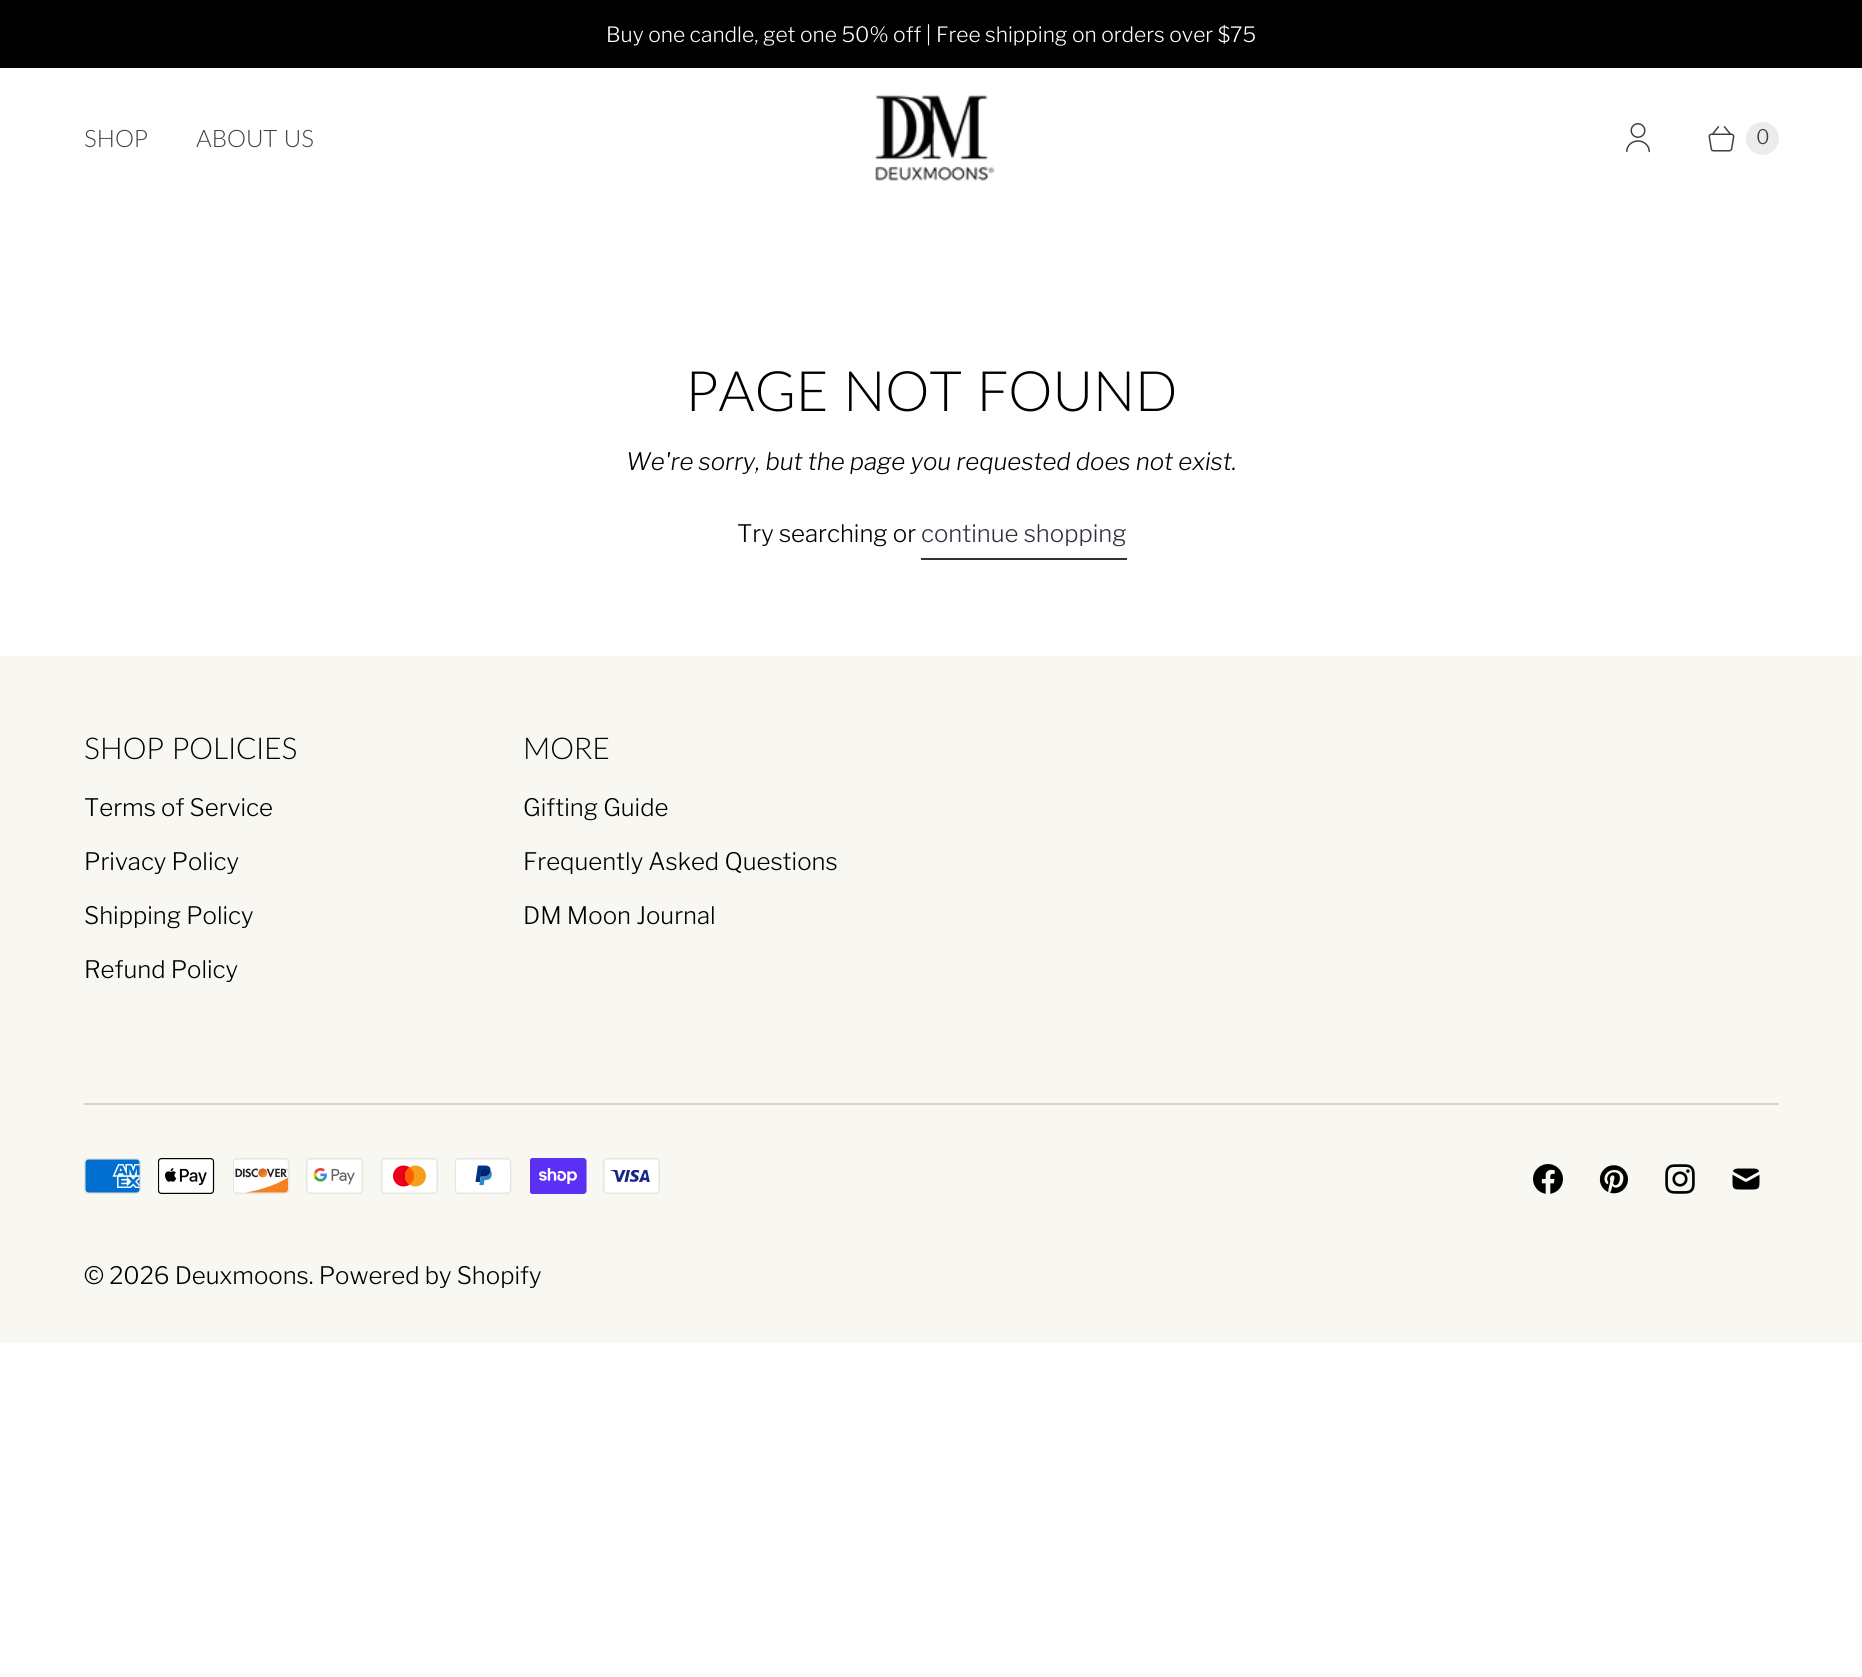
import math
import cairo


def paste(ctx, path, x, y, w, h):
	ctx.save()
	ctx.set_source_surface(cairo.ImageSurface.create_from_png(path), x, y)
	ctx.rectangle(x, y, w, h)
	ctx.fill()
	ctx.restore()

def draw(ctx):
	ctx.set_source_rgb(1, 1, 1)
	ctx.paint()
	ctx.set_source_rgb(0, 0, 0)
	ctx.rectangle(0, 0, 1862, 68)
	ctx.fill()
	ctx.select_font_face('Libre Franklin Light')
	ctx.set_font_size(21)
	ctx.set_source_rgb(1, 1, 1)
	ctx.move_to(606, 42)
	ctx.show_text('Buy one candle, get one 50% off | Free shipping on orders over $75')
	ctx.select_font_face('Lato Light')
	ctx.set_font_size(24)
	ctx.set_source_rgb(0.251, 0.251, 0.251)
	ctx.move_to(84, 147)
	ctx.show_text('SHOP')
	ctx.move_to(196, 147)
	ctx.show_text('ABOUT US')
	paste(ctx, 'media/1.png', 875, 95, 120, 86)
	paste(ctx, 'media/2.png', 1626, 123, 24, 30)
	paste(ctx, 'media/3.png', 1708, 126, 27, 26)
	ctx.set_source_rgb(0.925, 0.925, 0.925)
	ctx.arc(1762.5, 138.5, 16.5, 0, 2 * math.pi)
	ctx.fill()
	ctx.select_font_face('Libre Franklin Light')
	ctx.set_font_size(20)
	ctx.set_source_rgb(0.251, 0.251, 0.251)
	ctx.move_to(1756, 144)
	ctx.show_text('0')
	ctx.select_font_face('Lato Light')
	ctx.set_font_size(55.75)
	ctx.set_source_rgb(0, 0, 0)
	ctx.move_to(686, 411)
	ctx.show_text('PAGE NOT FOUND')
	ctx.select_font_face('Libre Franklin Light', cairo.FONT_SLANT_ITALIC)
	ctx.set_font_size(24)
	ctx.move_to(626, 470)
	ctx.show_text('We\'re sorry, but the page you requested does not exist.')
	ctx.select_font_face('Libre Franklin Light')
	ctx.move_to(737, 542)
	ctx.show_text('Try searching or')
	ctx.set_source_rgb(0.196, 0.188, 0.239)
	ctx.move_to(921, 542)
	ctx.show_text('continue shopping')
	ctx.rectangle(921, 558, 206, 2)
	ctx.fill()
	ctx.set_source_rgb(0.969, 0.965, 0.945)
	ctx.rectangle(0, 656, 1862, 687)
	ctx.fill()
	ctx.select_font_face('Lato Light')
	ctx.set_font_size(30)
	ctx.set_source_rgb(0, 0, 0)
	ctx.move_to(84, 759)
	ctx.show_text('SHOP POLICIES')
	ctx.select_font_face('Libre Franklin Light')
	ctx.set_font_size(24)
	for x, y, s in [
		(84, 816, 'Terms of Service'),
		(84, 870, 'Privacy Policy'),
		(84, 924, 'Shipping Policy'),
		(84, 978, 'Refund Policy'),
	]:
		ctx.move_to(x, y)
		ctx.show_text(s)
	ctx.select_font_face('Lato Light')
	ctx.set_font_size(30)
	ctx.move_to(523, 759)
	ctx.show_text('MORE')
	ctx.select_font_face('Libre Franklin Light')
	ctx.set_font_size(24)
	for x, y, s in [
		(523, 816, 'Gifting Guide'),
		(523, 870, 'Frequently Asked Questions'),
		(523, 924, 'DM Moon Journal'),
	]:
		ctx.move_to(x, y)
		ctx.show_text(s)
	ctx.set_source_rgb(0.839, 0.831, 0.796)
	ctx.rectangle(84, 1103, 1695, 2)
	ctx.fill()
	paste(ctx, 'media/4.png', 1533, 1164, 30, 30)
	paste(ctx, 'media/5.png', 1599, 1165, 29, 29)
	paste(ctx, 'media/6.png', 1665, 1164, 30, 30)
	paste(ctx, 'media/7.png', 1732, 1168, 28, 22)
	paste(ctx, 'media/8.png', 84, 1158, 57, 36)
	paste(ctx, 'media/9.png', 158, 1158, 57, 36)
	paste(ctx, 'media/10.png', 233, 1158, 57, 36)
	paste(ctx, 'media/11.png', 306, 1158, 57, 36)
	paste(ctx, 'media/12.png', 381, 1158, 57, 36)
	paste(ctx, 'media/13.png', 455, 1158, 57, 36)
	paste(ctx, 'media/14.png', 530, 1158, 57, 36)
	paste(ctx, 'media/15.png', 603, 1158, 57, 36)
	ctx.set_source_rgb(0, 0, 0)
	ctx.move_to(84, 1284)
	ctx.show_text('© 2026 Deuxmoons. Powered by Shopify')


surface = cairo.ImageSurface(cairo.FORMAT_RGB24, 1862, 1677)
ctx = cairo.Context(surface)
options = cairo.FontOptions()
options.set_hint_metrics(cairo.HINT_METRICS_OFF)
options.set_hint_style(cairo.HINT_STYLE_NONE)
ctx.set_font_options(options)
ctx.set_miter_limit(4)
draw(ctx)
surface.write_to_png('image.png')
